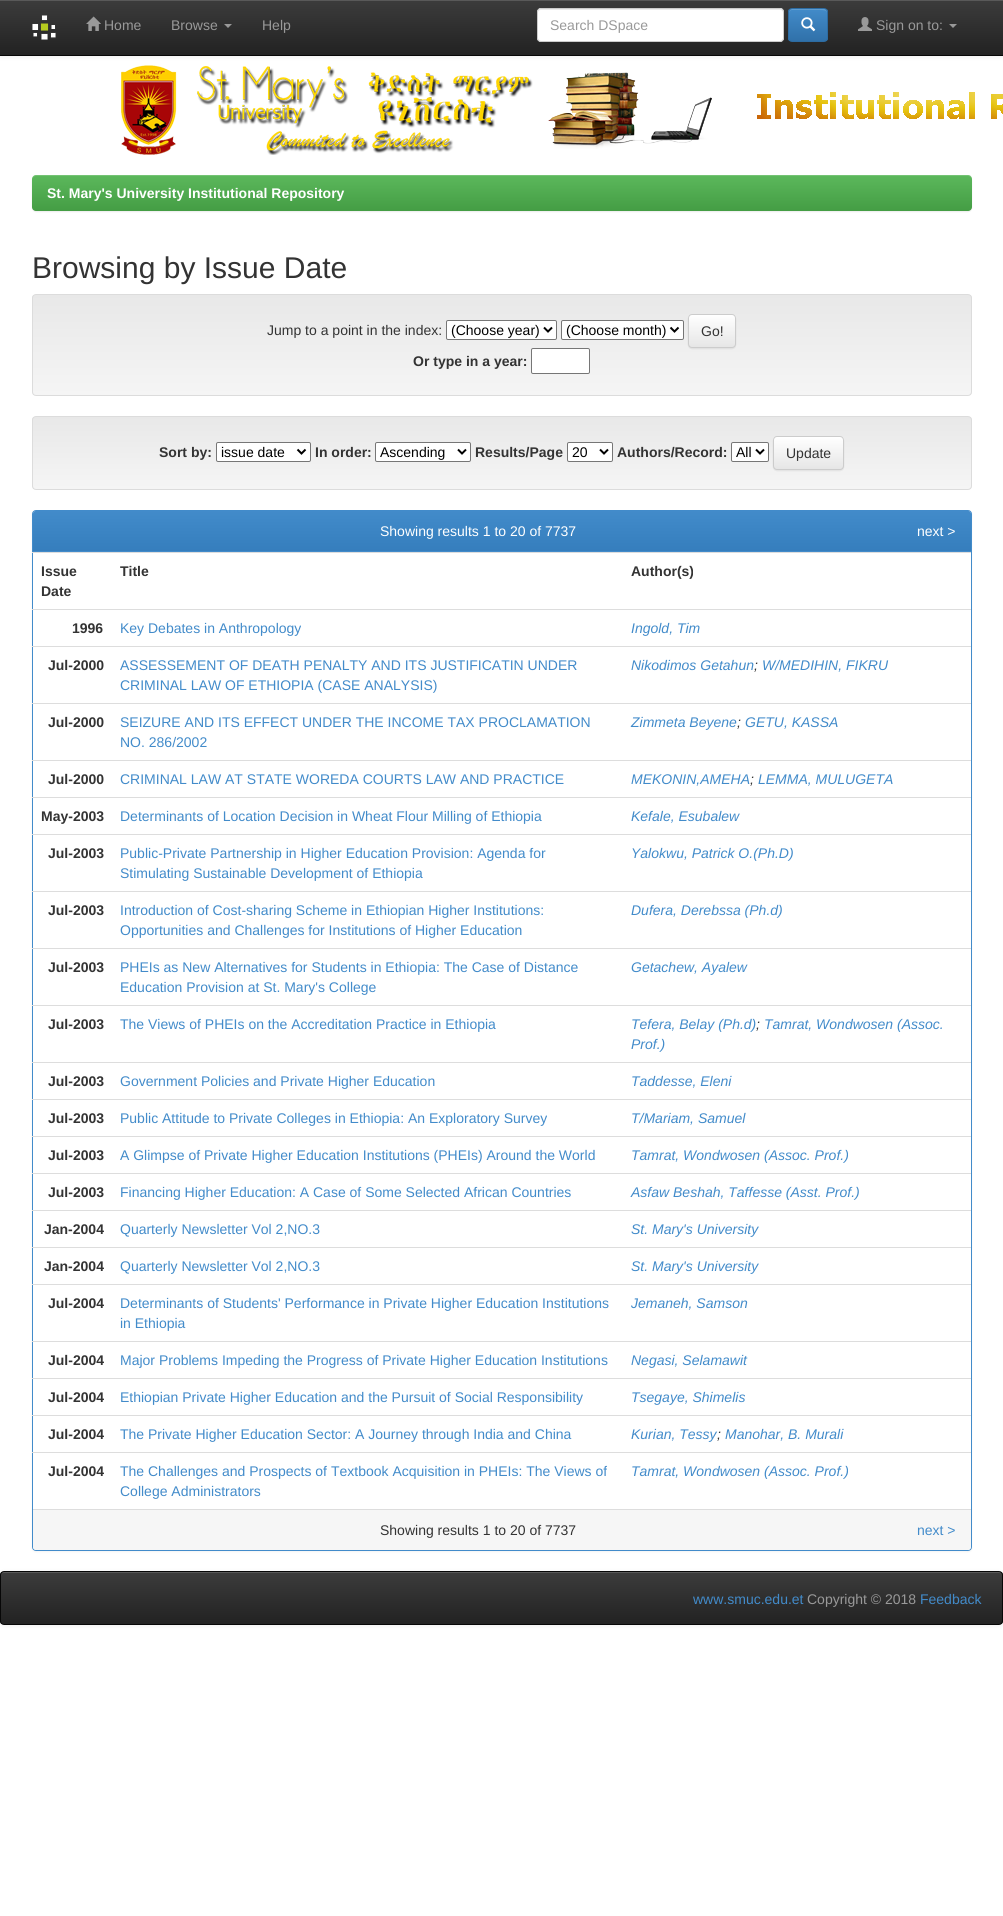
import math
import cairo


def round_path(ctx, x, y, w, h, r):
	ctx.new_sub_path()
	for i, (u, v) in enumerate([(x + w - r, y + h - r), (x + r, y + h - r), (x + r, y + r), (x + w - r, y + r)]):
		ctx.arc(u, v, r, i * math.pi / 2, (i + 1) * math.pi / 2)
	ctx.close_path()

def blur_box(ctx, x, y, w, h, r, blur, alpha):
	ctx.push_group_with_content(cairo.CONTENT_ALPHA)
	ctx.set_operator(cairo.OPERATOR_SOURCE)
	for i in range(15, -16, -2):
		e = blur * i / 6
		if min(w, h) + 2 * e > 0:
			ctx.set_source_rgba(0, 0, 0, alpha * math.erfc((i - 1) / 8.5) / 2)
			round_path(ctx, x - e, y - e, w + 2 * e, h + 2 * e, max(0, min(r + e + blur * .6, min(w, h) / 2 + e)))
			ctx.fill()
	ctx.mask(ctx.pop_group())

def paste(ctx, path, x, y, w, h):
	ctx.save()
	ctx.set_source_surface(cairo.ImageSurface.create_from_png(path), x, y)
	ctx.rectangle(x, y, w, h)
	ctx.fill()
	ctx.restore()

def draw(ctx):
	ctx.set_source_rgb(1, 1, 1)
	ctx.paint()
	paste(ctx, 'media/5.png', 121, 65, 412, 90)
	ctx.set_source_rgb(0, 0, 0)
	blur_box(ctx, 0, 1, 1003, 56, 0, 2.5, 0.07)
	gradient = cairo.LinearGradient(502, 0, 502, 55)
	gradient.add_color_stop_rgba(0, 0.235, 0.235, 0.235, 1)
	gradient.add_color_stop_rgba(1, 0.133, 0.133, 0.133, 1)
	ctx.set_source(gradient)
	ctx.rectangle(0, 1, 1003, 54)
	ctx.fill()
	ctx.set_source_rgb(0.349, 0.349, 0.349)
	ctx.rectangle(0, 0, 1003, 1)
	ctx.fill()
	ctx.set_source_rgb(0.031, 0.031, 0.031)
	ctx.rectangle(0, 55, 1003, 1)
	ctx.fill()
	paste(ctx, 'media/1.png', 32, 15, 24, 25)
	paste(ctx, 'media/2.png', 86, 16, 15, 15)
	ctx.select_font_face('Liberation Sans')
	ctx.set_font_size(14)
	ctx.set_source_rgb(0.6, 0.6, 0.6)
	ctx.move_to(104, 30)
	ctx.show_text('Home')
	ctx.move_to(171, 30)
	ctx.show_text('Browse')
	ctx.new_path()
	ctx.move_to(224, 24)
	ctx.line_to(232, 24)
	ctx.line_to(228, 28)
	ctx.close_path()
	ctx.fill()
	ctx.move_to(262, 30)
	ctx.show_text('Help')
	ctx.set_source_rgb(1, 1, 1)
	round_path(ctx, 537, 8, 247, 34, 4)
	ctx.fill()
	ctx.set_source_rgb(0.925, 0.925, 0.925)
	ctx.new_path()
	ctx.move_to(541, 10)
	ctx.line_to(781, 10)
	ctx.line_to(783, 11)
	ctx.line_to(783, 13)
	ctx.curve_to(783, 11, 782, 9, 780, 9)
	ctx.line_to(541, 9)
	ctx.curve_to(539, 9, 538, 11, 538, 13)
	ctx.curve_to(538, 11, 539, 10, 541, 10)
	ctx.close_path()
	ctx.fill()
	round_path(ctx, 537.5, 8.5, 246, 33, 3.5)
	ctx.set_source_rgb(0.8, 0.8, 0.8)
	ctx.set_line_width(1)
	ctx.stroke()
	ctx.set_source_rgb(0.6, 0.6, 0.6)
	ctx.move_to(550, 30)
	ctx.show_text('Search DSpace')
	ctx.save()
	round_path(ctx, 788, 8, 40, 34, 4)
	ctx.clip()
	gradient = cairo.LinearGradient(808, 9, 808, 41)
	gradient.add_color_stop_rgba(0, 0.259, 0.545, 0.792, 1)
	gradient.add_color_stop_rgba(1, 0.188, 0.443, 0.663, 1)
	ctx.set_source(gradient)
	ctx.rectangle(788, 9, 40, 32)
	ctx.fill()
	ctx.restore()
	ctx.set_source_rgb(0.369, 0.612, 0.82)
	ctx.new_path()
	ctx.move_to(792, 10)
	ctx.line_to(819, 10)
	ctx.curve_to(824.5, 10, 826.5, 10.5, 827, 12.5)
	ctx.curve_to(827, 7.5, 822.5, 9, 818.5, 9)
	ctx.line_to(797.5, 9)
	ctx.curve_to(794, 9, 789, 8, 789, 12.5)
	ctx.curve_to(789.5, 11, 790.5, 10, 792, 10)
	ctx.close_path()
	ctx.fill()
	round_path(ctx, 788.5, 8.5, 39, 33, 3.5)
	ctx.set_source_rgb(0.176, 0.424, 0.635)
	ctx.stroke()
	paste(ctx, 'media/3.png', 801, 17, 15, 15)
	paste(ctx, 'media/4.png', 858, 17, 14, 14)
	ctx.set_source_rgb(0.6, 0.6, 0.6)
	ctx.move_to(876, 30)
	ctx.show_text('Sign on to:')
	ctx.new_path()
	ctx.move_to(949, 24)
	ctx.line_to(957, 24)
	ctx.line_to(953, 28)
	ctx.close_path()
	ctx.fill()
	paste(ctx, 'media/6.png', 548, 72, 455, 77)
	ctx.set_source_rgb(0, 0, 0)
	blur_box(ctx, 32, 176, 940, 36, 4, 0.5, 0.07)
	gradient = cairo.LinearGradient(502, 175, 502, 211)
	gradient.add_color_stop_rgba(0, 0.361, 0.722, 0.361, 1)
	gradient.add_color_stop_rgba(1, 0.267, 0.616, 0.267, 1)
	ctx.set_source(gradient)
	round_path(ctx, 32, 175, 940, 36, 4)
	ctx.fill()
	ctx.set_source_rgba(1, 1, 1, 0.15)
	ctx.new_path()
	ctx.move_to(36, 176)
	ctx.line_to(968, 176)
	ctx.curve_to(970, 176, 972, 178, 972, 180)
	ctx.curve_to(972, 177, 971, 175, 968, 175)
	ctx.line_to(36, 175)
	ctx.curve_to(33, 175, 32, 177, 32, 180)
	ctx.curve_to(32, 178, 34, 176, 36, 176)
	ctx.close_path()
	ctx.fill()
	ctx.select_font_face('Liberation Sans', cairo.FONT_SLANT_NORMAL, cairo.FONT_WEIGHT_BOLD)
	ctx.set_source_rgb(1, 1, 1)
	ctx.move_to(47, 198)
	ctx.show_text('St. Mary\'s University Institutional Repository')
	ctx.select_font_face('Liberation Sans')
	ctx.set_font_size(30)
	ctx.set_source_rgb(0.2, 0.2, 0.2)
	ctx.move_to(32, 278)
	ctx.show_text('Browsing by Issue Date')
	ctx.save()
	round_path(ctx, 32, 294, 940, 102, 4)
	ctx.clip()
	gradient = cairo.LinearGradient(502, 295, 502, 395)
	gradient.add_color_stop_rgba(0, 0.91, 0.91, 0.91, 1)
	gradient.add_color_stop_rgba(1, 0.961, 0.961, 0.961, 1)
	ctx.set_source(gradient)
	ctx.rectangle(32, 295, 940, 100)
	ctx.fill()
	ctx.restore()
	round_path(ctx, 32.5, 294.5, 939, 101, 3.5)
	ctx.set_source_rgb(0.863, 0.863, 0.863)
	ctx.stroke()
	ctx.set_font_size(14)
	ctx.set_source_rgb(0.2, 0.2, 0.2)
	ctx.move_to(267, 335)
	ctx.show_text('Jump to a point in the index:')
	ctx.set_source_rgb(1, 1, 1)
	round_path(ctx, 446.5, 320.5, 110, 19, 1.5)
	ctx.fill_preserve()
	ctx.set_source_rgb(0.463, 0.463, 0.463)
	ctx.stroke()
	ctx.new_path()
	ctx.move_to(544, 327.5)
	ctx.line_to(548, 331.5)
	ctx.line_to(552, 327.5)
	ctx.set_source_rgb(0, 0, 0)
	ctx.set_line_width(2)
	ctx.stroke()
	ctx.move_to(451, 335)
	ctx.show_text('(Choose year)')
	ctx.set_source_rgb(1, 1, 1)
	round_path(ctx, 561.5, 320.5, 122, 19, 1.5)
	ctx.fill_preserve()
	ctx.set_source_rgb(0.463, 0.463, 0.463)
	ctx.set_line_width(1)
	ctx.stroke()
	ctx.new_path()
	ctx.move_to(670.5, 327.5)
	ctx.line_to(674.5, 331.5)
	ctx.line_to(678.5, 327.5)
	ctx.set_source_rgb(0, 0, 0)
	ctx.set_line_width(2)
	ctx.stroke()
	ctx.move_to(566, 335)
	ctx.show_text('(Choose month)')
	ctx.set_source_rgb(0, 0, 0)
	blur_box(ctx, 688, 315, 48, 34, 4, 0.5, 0.07)
	ctx.save()
	round_path(ctx, 688, 314, 48, 34, 4)
	ctx.clip()
	gradient = cairo.LinearGradient(712, 315, 712, 347)
	gradient.add_color_stop_rgba(0, 1, 1, 1, 1)
	gradient.add_color_stop_rgba(1, 0.902, 0.902, 0.902, 1)
	ctx.set_source(gradient)
	ctx.rectangle(688, 315, 48, 32)
	ctx.fill()
	ctx.restore()
	round_path(ctx, 688.5, 314.5, 47, 33, 3.5)
	ctx.set_source_rgb(0.8, 0.8, 0.8)
	ctx.set_line_width(1)
	ctx.stroke()
	ctx.set_source_rgb(0.2, 0.2, 0.2)
	ctx.move_to(701, 336)
	ctx.show_text('Go!')
	ctx.select_font_face('Liberation Sans', cairo.FONT_SLANT_NORMAL, cairo.FONT_WEIGHT_BOLD)
	ctx.move_to(413, 366)
	ctx.show_text('Or type in a year:')
	ctx.set_source_rgb(1, 1, 1)
	round_path(ctx, 531.5, 348.5, 58, 25, 1.5)
	ctx.fill_preserve()
	ctx.set_source_rgb(0.463, 0.463, 0.463)
	ctx.stroke()
	ctx.save()
	round_path(ctx, 32, 416, 940, 74, 4)
	ctx.clip()
	gradient = cairo.LinearGradient(502, 417, 502, 489)
	gradient.add_color_stop_rgba(0, 0.91, 0.91, 0.91, 1)
	gradient.add_color_stop_rgba(1, 0.961, 0.961, 0.961, 1)
	ctx.set_source(gradient)
	ctx.rectangle(32, 417, 940, 72)
	ctx.fill()
	ctx.restore()
	round_path(ctx, 32.5, 416.5, 939, 73, 3.5)
	ctx.set_source_rgb(0.863, 0.863, 0.863)
	ctx.stroke()
	ctx.set_source_rgb(0.2, 0.2, 0.2)
	ctx.move_to(159, 457)
	ctx.show_text('Sort by:')
	ctx.set_source_rgb(1, 1, 1)
	round_path(ctx, 216.5, 442.5, 94, 19, 1.5)
	ctx.fill_preserve()
	ctx.set_source_rgb(0.463, 0.463, 0.463)
	ctx.stroke()
	ctx.new_path()
	ctx.move_to(297.5, 449.5)
	ctx.line_to(301.5, 453.5)
	ctx.line_to(305.5, 449.5)
	ctx.set_source_rgb(0, 0, 0)
	ctx.set_line_width(2)
	ctx.stroke()
	ctx.select_font_face('Liberation Sans')
	ctx.move_to(221, 457)
	ctx.show_text('issue date')
	ctx.select_font_face('Liberation Sans', cairo.FONT_SLANT_NORMAL, cairo.FONT_WEIGHT_BOLD)
	ctx.set_source_rgb(0.2, 0.2, 0.2)
	ctx.move_to(315, 457)
	ctx.show_text('In order:')
	ctx.set_source_rgb(1, 1, 1)
	round_path(ctx, 375.5, 442.5, 95, 19, 1.5)
	ctx.fill_preserve()
	ctx.set_source_rgb(0.463, 0.463, 0.463)
	ctx.set_line_width(1)
	ctx.stroke()
	ctx.new_path()
	ctx.move_to(458, 449.5)
	ctx.line_to(462, 453.5)
	ctx.line_to(466, 449.5)
	ctx.set_source_rgb(0, 0, 0)
	ctx.set_line_width(2)
	ctx.stroke()
	ctx.select_font_face('Liberation Sans')
	ctx.move_to(380, 457)
	ctx.show_text('Ascending')
	ctx.select_font_face('Liberation Sans', cairo.FONT_SLANT_NORMAL, cairo.FONT_WEIGHT_BOLD)
	ctx.set_source_rgb(0.2, 0.2, 0.2)
	ctx.move_to(475, 457)
	ctx.show_text('Results/Page')
	ctx.set_source_rgb(1, 1, 1)
	round_path(ctx, 567.5, 442.5, 45, 19, 1.5)
	ctx.fill_preserve()
	ctx.set_source_rgb(0.463, 0.463, 0.463)
	ctx.set_line_width(1)
	ctx.stroke()
	ctx.new_path()
	ctx.move_to(600, 449.5)
	ctx.line_to(604, 453.5)
	ctx.line_to(608, 449.5)
	ctx.set_source_rgb(0, 0, 0)
	ctx.set_line_width(2)
	ctx.stroke()
	ctx.select_font_face('Liberation Sans')
	ctx.move_to(572, 457)
	ctx.show_text('20')
	ctx.select_font_face('Liberation Sans', cairo.FONT_SLANT_NORMAL, cairo.FONT_WEIGHT_BOLD)
	ctx.set_source_rgb(0.2, 0.2, 0.2)
	ctx.move_to(617, 457)
	ctx.show_text('Authors/Record:')
	ctx.set_source_rgb(1, 1, 1)
	round_path(ctx, 731.5, 442.5, 37, 19, 1.5)
	ctx.fill_preserve()
	ctx.set_source_rgb(0.463, 0.463, 0.463)
	ctx.set_line_width(1)
	ctx.stroke()
	ctx.new_path()
	ctx.move_to(756, 449.5)
	ctx.line_to(760, 453.5)
	ctx.line_to(764, 449.5)
	ctx.set_source_rgb(0, 0, 0)
	ctx.set_line_width(2)
	ctx.stroke()
	ctx.select_font_face('Liberation Sans')
	ctx.move_to(736, 457)
	ctx.show_text('All')
	ctx.set_source_rgb(0, 0, 0)
	blur_box(ctx, 773, 437, 71, 34, 4, 0.5, 0.07)
	ctx.save()
	round_path(ctx, 773, 436, 71, 34, 4)
	ctx.clip()
	gradient = cairo.LinearGradient(809, 437, 809, 469)
	gradient.add_color_stop_rgba(0, 1, 1, 1, 1)
	gradient.add_color_stop_rgba(1, 0.902, 0.902, 0.902, 1)
	ctx.set_source(gradient)
	ctx.rectangle(773, 437, 71, 32)
	ctx.fill()
	ctx.restore()
	round_path(ctx, 773.5, 436.5, 70, 33, 3.5)
	ctx.set_source_rgb(0.8, 0.8, 0.8)
	ctx.set_line_width(1)
	ctx.stroke()
	ctx.set_source_rgb(0.2, 0.2, 0.2)
	ctx.move_to(786, 458)
	ctx.show_text('Update')
	ctx.set_source_rgb(0, 0, 0)
	blur_box(ctx, 32, 511, 940, 1041, 4, 1, 0.05)
	ctx.set_source_rgb(1, 1, 1)
	round_path(ctx, 32.5, 510.5, 939, 1040, 3.5)
	ctx.fill_preserve()
	ctx.set_source_rgb(0.259, 0.545, 0.792)
	ctx.stroke()
	ctx.new_path()
	ctx.move_to(36, 511)
	ctx.line_to(968, 511)
	ctx.curve_to(969.5, 511, 971, 512.5, 971, 514)
	ctx.line_to(971, 552)
	ctx.line_to(33, 552)
	ctx.line_to(33, 514)
	ctx.curve_to(33, 512.5, 34.5, 511, 36, 511)
	ctx.close_path()
	ctx.fill()
	gradient = cairo.LinearGradient(502, 511, 502, 551)
	gradient.add_color_stop_rgba(0, 0.259, 0.545, 0.792, 1)
	gradient.add_color_stop_rgba(1, 0.208, 0.494, 0.741, 1)
	ctx.set_source(gradient)
	ctx.new_path()
	ctx.move_to(36, 511)
	ctx.line_to(968, 511)
	ctx.curve_to(969.5, 511, 971, 512.5, 971, 514)
	ctx.line_to(971, 551)
	ctx.line_to(33, 551)
	ctx.line_to(33, 514)
	ctx.curve_to(33, 512.5, 34.5, 511, 36, 511)
	ctx.close_path()
	ctx.fill()
	ctx.set_source_rgb(1, 1, 1)
	ctx.move_to(380, 536)
	ctx.show_text('Showing results 1 to 20 of 7737')
	ctx.move_to(917, 536)
	ctx.show_text('next >')
	ctx.select_font_face('Liberation Sans', cairo.FONT_SLANT_NORMAL, cairo.FONT_WEIGHT_BOLD)
	ctx.set_source_rgb(0.2, 0.2, 0.2)
	for x, y, s in [
		(41, 576, 'Issue'),
		(41, 596, 'Date'),
		(120, 576, 'Title'),
	]:
		ctx.move_to(x, y)
		ctx.show_text(s)
	ctx.set_source_rgb(0.867, 0.867, 0.867)
	ctx.rectangle(32, 552, 939, 1)
	ctx.fill()
	ctx.set_source_rgb(0.2, 0.2, 0.2)
	ctx.move_to(631, 576)
	ctx.show_text('Author(s)')
	ctx.move_to(72, 633)
	ctx.show_text('1996')
	ctx.select_font_face('Liberation Sans')
	ctx.set_source_rgb(0.259, 0.545, 0.792)
	ctx.move_to(120, 633)
	ctx.show_text('Key Debates in Anthropology')
	ctx.set_source_rgb(0.867, 0.867, 0.867)
	ctx.rectangle(32, 609, 939, 1)
	ctx.fill()
	ctx.select_font_face('Liberation Sans', cairo.FONT_SLANT_ITALIC)
	ctx.set_source_rgb(0.259, 0.545, 0.792)
	ctx.move_to(631, 633)
	ctx.show_text('Ingold, Tim')
	ctx.select_font_face('Liberation Sans', cairo.FONT_SLANT_NORMAL, cairo.FONT_WEIGHT_BOLD)
	ctx.set_source_rgb(0.2, 0.2, 0.2)
	ctx.move_to(48, 670)
	ctx.show_text('Jul-2000')
	ctx.select_font_face('Liberation Sans')
	ctx.set_source_rgb(0.259, 0.545, 0.792)
	ctx.move_to(120, 670)
	ctx.show_text('ASSESSEMENT OF DEATH PENALTY AND ITS JUSTIFICATIN UNDER')
	ctx.move_to(120, 690)
	ctx.show_text('CRIMINAL LAW OF ETHIOPIA (CASE ANALYSIS)')
	ctx.set_source_rgb(0.867, 0.867, 0.867)
	ctx.rectangle(32, 646, 939, 1)
	ctx.fill()
	ctx.select_font_face('Liberation Sans', cairo.FONT_SLANT_ITALIC)
	ctx.set_source_rgb(0.259, 0.545, 0.792)
	ctx.move_to(631, 670)
	ctx.show_text('Nikodimos Getahun')
	ctx.set_source_rgb(0.2, 0.2, 0.2)
	ctx.move_to(754, 670)
	ctx.show_text(';')
	ctx.set_source_rgb(0.259, 0.545, 0.792)
	ctx.move_to(762, 670)
	ctx.show_text('W/MEDIHIN, FIKRU')
	ctx.select_font_face('Liberation Sans', cairo.FONT_SLANT_NORMAL, cairo.FONT_WEIGHT_BOLD)
	ctx.set_source_rgb(0.2, 0.2, 0.2)
	ctx.move_to(48, 727)
	ctx.show_text('Jul-2000')
	ctx.select_font_face('Liberation Sans')
	ctx.set_source_rgb(0.259, 0.545, 0.792)
	ctx.move_to(120, 727)
	ctx.show_text('SEIZURE AND ITS EFFECT UNDER THE INCOME TAX PROCLAMATION')
	ctx.move_to(120, 747)
	ctx.show_text('NO. 286/2002')
	ctx.set_source_rgb(0.867, 0.867, 0.867)
	ctx.rectangle(32, 703, 939, 1)
	ctx.fill()
	ctx.select_font_face('Liberation Sans', cairo.FONT_SLANT_ITALIC)
	ctx.set_source_rgb(0.259, 0.545, 0.792)
	ctx.move_to(631, 727)
	ctx.show_text('Zimmeta Beyene')
	ctx.set_source_rgb(0.2, 0.2, 0.2)
	ctx.move_to(737, 727)
	ctx.show_text(';')
	ctx.set_source_rgb(0.259, 0.545, 0.792)
	ctx.move_to(745, 727)
	ctx.show_text('GETU, KASSA')
	ctx.select_font_face('Liberation Sans', cairo.FONT_SLANT_NORMAL, cairo.FONT_WEIGHT_BOLD)
	ctx.set_source_rgb(0.2, 0.2, 0.2)
	ctx.move_to(48, 784)
	ctx.show_text('Jul-2000')
	ctx.select_font_face('Liberation Sans')
	ctx.set_source_rgb(0.259, 0.545, 0.792)
	ctx.move_to(120, 784)
	ctx.show_text('CRIMINAL LAW AT STATE WOREDA COURTS LAW AND PRACTICE')
	ctx.set_source_rgb(0.867, 0.867, 0.867)
	ctx.rectangle(32, 760, 939, 1)
	ctx.fill()
	ctx.select_font_face('Liberation Sans', cairo.FONT_SLANT_ITALIC)
	ctx.set_source_rgb(0.259, 0.545, 0.792)
	ctx.move_to(631, 784)
	ctx.show_text('MEKONIN,AMEHA')
	ctx.set_source_rgb(0.2, 0.2, 0.2)
	ctx.move_to(750, 784)
	ctx.show_text(';')
	ctx.set_source_rgb(0.259, 0.545, 0.792)
	ctx.move_to(758, 784)
	ctx.show_text('LEMMA, MULUGETA')
	ctx.select_font_face('Liberation Sans', cairo.FONT_SLANT_NORMAL, cairo.FONT_WEIGHT_BOLD)
	ctx.set_source_rgb(0.2, 0.2, 0.2)
	ctx.move_to(41, 821)
	ctx.show_text('May-2003')
	ctx.select_font_face('Liberation Sans')
	ctx.set_source_rgb(0.259, 0.545, 0.792)
	ctx.move_to(120, 821)
	ctx.show_text('Determinants of Location Decision in Wheat Flour Milling of Ethiopia')
	ctx.set_source_rgb(0.867, 0.867, 0.867)
	ctx.rectangle(32, 797, 939, 1)
	ctx.fill()
	ctx.select_font_face('Liberation Sans', cairo.FONT_SLANT_ITALIC)
	ctx.set_source_rgb(0.259, 0.545, 0.792)
	ctx.move_to(631, 821)
	ctx.show_text('Kefale, Esubalew')
	ctx.select_font_face('Liberation Sans', cairo.FONT_SLANT_NORMAL, cairo.FONT_WEIGHT_BOLD)
	ctx.set_source_rgb(0.2, 0.2, 0.2)
	ctx.move_to(48, 858)
	ctx.show_text('Jul-2003')
	ctx.select_font_face('Liberation Sans')
	ctx.set_source_rgb(0.259, 0.545, 0.792)
	ctx.move_to(120, 858)
	ctx.show_text('Public-Private Partnership in Higher Education Provision: Agenda for')
	ctx.move_to(120, 878)
	ctx.show_text('Stimulating Sustainable Development of Ethiopia')
	ctx.set_source_rgb(0.867, 0.867, 0.867)
	ctx.rectangle(32, 834, 939, 1)
	ctx.fill()
	ctx.select_font_face('Liberation Sans', cairo.FONT_SLANT_ITALIC)
	ctx.set_source_rgb(0.259, 0.545, 0.792)
	ctx.move_to(631, 858)
	ctx.show_text('Yalokwu, Patrick O.(Ph.D)')
	ctx.select_font_face('Liberation Sans', cairo.FONT_SLANT_NORMAL, cairo.FONT_WEIGHT_BOLD)
	ctx.set_source_rgb(0.2, 0.2, 0.2)
	ctx.move_to(48, 915)
	ctx.show_text('Jul-2003')
	ctx.select_font_face('Liberation Sans')
	ctx.set_source_rgb(0.259, 0.545, 0.792)
	ctx.move_to(120, 915)
	ctx.show_text('Introduction of Cost-sharing Scheme in Ethiopian Higher Institutions:')
	ctx.move_to(120, 935)
	ctx.show_text('Opportunities and Challenges for Institutions of Higher Education')
	ctx.set_source_rgb(0.867, 0.867, 0.867)
	ctx.rectangle(32, 891, 939, 1)
	ctx.fill()
	ctx.select_font_face('Liberation Sans', cairo.FONT_SLANT_ITALIC)
	ctx.set_source_rgb(0.259, 0.545, 0.792)
	ctx.move_to(631, 915)
	ctx.show_text('Dufera, Derebssa (Ph.d)')
	ctx.select_font_face('Liberation Sans', cairo.FONT_SLANT_NORMAL, cairo.FONT_WEIGHT_BOLD)
	ctx.set_source_rgb(0.2, 0.2, 0.2)
	ctx.move_to(48, 972)
	ctx.show_text('Jul-2003')
	ctx.select_font_face('Liberation Sans')
	ctx.set_source_rgb(0.259, 0.545, 0.792)
	ctx.move_to(120, 972)
	ctx.show_text('PHEIs as New Alternatives for Students in Ethiopia: The Case of Distance')
	ctx.move_to(120, 992)
	ctx.show_text('Education Provision at St. Mary\'s College')
	ctx.set_source_rgb(0.867, 0.867, 0.867)
	ctx.rectangle(32, 948, 939, 1)
	ctx.fill()
	ctx.select_font_face('Liberation Sans', cairo.FONT_SLANT_ITALIC)
	ctx.set_source_rgb(0.259, 0.545, 0.792)
	ctx.move_to(631, 972)
	ctx.show_text('Getachew, Ayalew')
	ctx.select_font_face('Liberation Sans', cairo.FONT_SLANT_NORMAL, cairo.FONT_WEIGHT_BOLD)
	ctx.set_source_rgb(0.2, 0.2, 0.2)
	ctx.move_to(48, 1029)
	ctx.show_text('Jul-2003')
	ctx.select_font_face('Liberation Sans')
	ctx.set_source_rgb(0.259, 0.545, 0.792)
	ctx.move_to(120, 1029)
	ctx.show_text('The Views of PHEIs on the Accreditation Practice in Ethiopia')
	ctx.set_source_rgb(0.867, 0.867, 0.867)
	ctx.rectangle(32, 1005, 939, 1)
	ctx.fill()
	ctx.select_font_face('Liberation Sans', cairo.FONT_SLANT_ITALIC)
	ctx.set_source_rgb(0.259, 0.545, 0.792)
	ctx.move_to(631, 1029)
	ctx.show_text('Tefera, Belay (Ph.d)')
	ctx.set_source_rgb(0.2, 0.2, 0.2)
	ctx.move_to(756, 1029)
	ctx.show_text(';')
	ctx.set_source_rgb(0.259, 0.545, 0.792)
	ctx.move_to(764, 1029)
	ctx.show_text('Tamrat, Wondwosen (Assoc.')
	ctx.move_to(631, 1049)
	ctx.show_text('Prof.)')
	ctx.select_font_face('Liberation Sans', cairo.FONT_SLANT_NORMAL, cairo.FONT_WEIGHT_BOLD)
	ctx.set_source_rgb(0.2, 0.2, 0.2)
	ctx.move_to(48, 1086)
	ctx.show_text('Jul-2003')
	ctx.select_font_face('Liberation Sans')
	ctx.set_source_rgb(0.259, 0.545, 0.792)
	ctx.move_to(120, 1086)
	ctx.show_text('Government Policies and Private Higher Education')
	ctx.set_source_rgb(0.867, 0.867, 0.867)
	ctx.rectangle(32, 1062, 939, 1)
	ctx.fill()
	ctx.select_font_face('Liberation Sans', cairo.FONT_SLANT_ITALIC)
	ctx.set_source_rgb(0.259, 0.545, 0.792)
	ctx.move_to(631, 1086)
	ctx.show_text('Taddesse, Eleni')
	ctx.select_font_face('Liberation Sans', cairo.FONT_SLANT_NORMAL, cairo.FONT_WEIGHT_BOLD)
	ctx.set_source_rgb(0.2, 0.2, 0.2)
	ctx.move_to(48, 1123)
	ctx.show_text('Jul-2003')
	ctx.select_font_face('Liberation Sans')
	ctx.set_source_rgb(0.259, 0.545, 0.792)
	ctx.move_to(120, 1123)
	ctx.show_text('Public Attitude to Private Colleges in Ethiopia: An Exploratory Survey')
	ctx.set_source_rgb(0.867, 0.867, 0.867)
	ctx.rectangle(32, 1099, 939, 1)
	ctx.fill()
	ctx.select_font_face('Liberation Sans', cairo.FONT_SLANT_ITALIC)
	ctx.set_source_rgb(0.259, 0.545, 0.792)
	ctx.move_to(631, 1123)
	ctx.show_text('T/Mariam, Samuel')
	ctx.select_font_face('Liberation Sans', cairo.FONT_SLANT_NORMAL, cairo.FONT_WEIGHT_BOLD)
	ctx.set_source_rgb(0.2, 0.2, 0.2)
	ctx.move_to(48, 1160)
	ctx.show_text('Jul-2003')
	ctx.select_font_face('Liberation Sans')
	ctx.set_source_rgb(0.259, 0.545, 0.792)
	ctx.move_to(120, 1160)
	ctx.show_text('A Glimpse of Private Higher Education Institutions (PHEIs) Around the World')
	ctx.set_source_rgb(0.867, 0.867, 0.867)
	ctx.rectangle(32, 1136, 939, 1)
	ctx.fill()
	ctx.select_font_face('Liberation Sans', cairo.FONT_SLANT_ITALIC)
	ctx.set_source_rgb(0.259, 0.545, 0.792)
	ctx.move_to(631, 1160)
	ctx.show_text('Tamrat, Wondwosen (Assoc. Prof.)')
	ctx.select_font_face('Liberation Sans', cairo.FONT_SLANT_NORMAL, cairo.FONT_WEIGHT_BOLD)
	ctx.set_source_rgb(0.2, 0.2, 0.2)
	ctx.move_to(48, 1197)
	ctx.show_text('Jul-2003')
	ctx.select_font_face('Liberation Sans')
	ctx.set_source_rgb(0.259, 0.545, 0.792)
	ctx.move_to(120, 1197)
	ctx.show_text('Financing Higher Education: A Case of Some Selected African Countries')
	ctx.set_source_rgb(0.867, 0.867, 0.867)
	ctx.rectangle(32, 1173, 939, 1)
	ctx.fill()
	ctx.select_font_face('Liberation Sans', cairo.FONT_SLANT_ITALIC)
	ctx.set_source_rgb(0.259, 0.545, 0.792)
	ctx.move_to(631, 1197)
	ctx.show_text('Asfaw Beshah, Taffesse (Asst. Prof.)')
	ctx.select_font_face('Liberation Sans', cairo.FONT_SLANT_NORMAL, cairo.FONT_WEIGHT_BOLD)
	ctx.set_source_rgb(0.2, 0.2, 0.2)
	ctx.move_to(44, 1234)
	ctx.show_text('Jan-2004')
	ctx.select_font_face('Liberation Sans')
	ctx.set_source_rgb(0.259, 0.545, 0.792)
	ctx.move_to(120, 1234)
	ctx.show_text('Quarterly Newsletter Vol 2,NO.3')
	ctx.set_source_rgb(0.867, 0.867, 0.867)
	ctx.rectangle(32, 1210, 939, 1)
	ctx.fill()
	ctx.select_font_face('Liberation Sans', cairo.FONT_SLANT_ITALIC)
	ctx.set_source_rgb(0.259, 0.545, 0.792)
	ctx.move_to(631, 1234)
	ctx.show_text('St. Mary\'s University')
	ctx.select_font_face('Liberation Sans', cairo.FONT_SLANT_NORMAL, cairo.FONT_WEIGHT_BOLD)
	ctx.set_source_rgb(0.2, 0.2, 0.2)
	ctx.move_to(44, 1271)
	ctx.show_text('Jan-2004')
	ctx.select_font_face('Liberation Sans')
	ctx.set_source_rgb(0.259, 0.545, 0.792)
	ctx.move_to(120, 1271)
	ctx.show_text('Quarterly Newsletter Vol 2,NO.3')
	ctx.set_source_rgb(0.867, 0.867, 0.867)
	ctx.rectangle(32, 1247, 939, 1)
	ctx.fill()
	ctx.select_font_face('Liberation Sans', cairo.FONT_SLANT_ITALIC)
	ctx.set_source_rgb(0.259, 0.545, 0.792)
	ctx.move_to(631, 1271)
	ctx.show_text('St. Mary\'s University')
	ctx.select_font_face('Liberation Sans', cairo.FONT_SLANT_NORMAL, cairo.FONT_WEIGHT_BOLD)
	ctx.set_source_rgb(0.2, 0.2, 0.2)
	ctx.move_to(48, 1308)
	ctx.show_text('Jul-2004')
	ctx.select_font_face('Liberation Sans')
	ctx.set_source_rgb(0.259, 0.545, 0.792)
	ctx.move_to(120, 1308)
	ctx.show_text('Determinants of Students\' Performance in Private Higher Education Institutions')
	ctx.move_to(120, 1328)
	ctx.show_text('in Ethiopia')
	ctx.set_source_rgb(0.867, 0.867, 0.867)
	ctx.rectangle(32, 1284, 939, 1)
	ctx.fill()
	ctx.select_font_face('Liberation Sans', cairo.FONT_SLANT_ITALIC)
	ctx.set_source_rgb(0.259, 0.545, 0.792)
	ctx.move_to(631, 1308)
	ctx.show_text('Jemaneh, Samson')
	ctx.select_font_face('Liberation Sans', cairo.FONT_SLANT_NORMAL, cairo.FONT_WEIGHT_BOLD)
	ctx.set_source_rgb(0.2, 0.2, 0.2)
	ctx.move_to(48, 1365)
	ctx.show_text('Jul-2004')
	ctx.select_font_face('Liberation Sans')
	ctx.set_source_rgb(0.259, 0.545, 0.792)
	ctx.move_to(120, 1365)
	ctx.show_text('Major Problems Impeding the Progress of Private Higher Education Institutions')
	ctx.set_source_rgb(0.867, 0.867, 0.867)
	ctx.rectangle(32, 1341, 939, 1)
	ctx.fill()
	ctx.select_font_face('Liberation Sans', cairo.FONT_SLANT_ITALIC)
	ctx.set_source_rgb(0.259, 0.545, 0.792)
	ctx.move_to(631, 1365)
	ctx.show_text('Negasi, Selamawit')
	ctx.select_font_face('Liberation Sans', cairo.FONT_SLANT_NORMAL, cairo.FONT_WEIGHT_BOLD)
	ctx.set_source_rgb(0.2, 0.2, 0.2)
	ctx.move_to(48, 1402)
	ctx.show_text('Jul-2004')
	ctx.select_font_face('Liberation Sans')
	ctx.set_source_rgb(0.259, 0.545, 0.792)
	ctx.move_to(120, 1402)
	ctx.show_text('Ethiopian Private Higher Education and the Pursuit of Social Responsibility')
	ctx.set_source_rgb(0.867, 0.867, 0.867)
	ctx.rectangle(32, 1378, 939, 1)
	ctx.fill()
	ctx.select_font_face('Liberation Sans', cairo.FONT_SLANT_ITALIC)
	ctx.set_source_rgb(0.259, 0.545, 0.792)
	ctx.move_to(631, 1402)
	ctx.show_text('Tsegaye, Shimelis')
	ctx.select_font_face('Liberation Sans', cairo.FONT_SLANT_NORMAL, cairo.FONT_WEIGHT_BOLD)
	ctx.set_source_rgb(0.2, 0.2, 0.2)
	ctx.move_to(48, 1439)
	ctx.show_text('Jul-2004')
	ctx.select_font_face('Liberation Sans')
	ctx.set_source_rgb(0.259, 0.545, 0.792)
	ctx.move_to(120, 1439)
	ctx.show_text('The Private Higher Education Sector: A Journey through India and China')
	ctx.set_source_rgb(0.867, 0.867, 0.867)
	ctx.rectangle(32, 1415, 939, 1)
	ctx.fill()
	ctx.select_font_face('Liberation Sans', cairo.FONT_SLANT_ITALIC)
	ctx.set_source_rgb(0.259, 0.545, 0.792)
	ctx.move_to(631, 1439)
	ctx.show_text('Kurian, Tessy')
	ctx.set_source_rgb(0.2, 0.2, 0.2)
	ctx.move_to(717, 1439)
	ctx.show_text(';')
	ctx.set_source_rgb(0.259, 0.545, 0.792)
	ctx.move_to(725, 1439)
	ctx.show_text('Manohar, B. Murali')
	ctx.select_font_face('Liberation Sans', cairo.FONT_SLANT_NORMAL, cairo.FONT_WEIGHT_BOLD)
	ctx.set_source_rgb(0.2, 0.2, 0.2)
	ctx.move_to(48, 1476)
	ctx.show_text('Jul-2004')
	ctx.select_font_face('Liberation Sans')
	ctx.set_source_rgb(0.259, 0.545, 0.792)
	ctx.move_to(120, 1476)
	ctx.show_text('The Challenges and Prospects of Textbook Acquisition in PHEIs: The Views of')
	ctx.move_to(120, 1496)
	ctx.show_text('College Administrators')
	ctx.set_source_rgb(0.867, 0.867, 0.867)
	ctx.rectangle(32, 1452, 939, 1)
	ctx.fill()
	ctx.select_font_face('Liberation Sans', cairo.FONT_SLANT_ITALIC)
	ctx.set_source_rgb(0.259, 0.545, 0.792)
	ctx.move_to(631, 1476)
	ctx.show_text('Tamrat, Wondwosen (Assoc. Prof.)')
	ctx.set_source_rgb(0.961, 0.961, 0.961)
	ctx.new_path()
	ctx.move_to(33, 1509)
	ctx.line_to(971, 1509)
	ctx.line_to(971, 1547)
	ctx.curve_to(971, 1548.5, 969.5, 1550, 968, 1550)
	ctx.line_to(36, 1550)
	ctx.curve_to(34.5, 1550, 33, 1548.5, 33, 1547)
	ctx.close_path()
	ctx.fill()
	ctx.set_source_rgb(0.867, 0.867, 0.867)
	ctx.rectangle(33, 1509, 938, 1)
	ctx.fill()
	ctx.select_font_face('Liberation Sans')
	ctx.set_source_rgb(0.2, 0.2, 0.2)
	ctx.move_to(380, 1535)
	ctx.show_text('Showing results 1 to 20 of 7737')
	ctx.set_source_rgb(0.259, 0.545, 0.792)
	ctx.move_to(917, 1535)
	ctx.show_text('next >')
	ctx.set_source_rgb(0, 0, 0)
	blur_box(ctx, 0, 1572, 1003, 54, 4, 2.5, 0.07)
	ctx.save()
	round_path(ctx, 0, 1571, 1003, 54, 4)
	ctx.clip()
	gradient = cairo.LinearGradient(502, 1572, 502, 1624)
	gradient.add_color_stop_rgba(0, 0.235, 0.235, 0.235, 1)
	gradient.add_color_stop_rgba(1, 0.133, 0.133, 0.133, 1)
	ctx.set_source(gradient)
	ctx.rectangle(0, 1572, 1003, 52)
	ctx.fill()
	ctx.restore()
	ctx.set_source_rgb(0.349, 0.349, 0.349)
	ctx.new_path()
	ctx.move_to(4, 1573)
	ctx.line_to(999, 1573)
	ctx.curve_to(1001, 1573, 1002, 1574, 1002, 1576)
	ctx.curve_to(1002, 1574, 1001, 1572, 999, 1572)
	ctx.line_to(4, 1572)
	ctx.curve_to(2, 1572, 1, 1574, 1, 1576)
	ctx.curve_to(1, 1574, 2, 1573, 4, 1573)
	ctx.close_path()
	ctx.fill()
	round_path(ctx, 0.5, 1571.5, 1002, 53, 3.5)
	ctx.set_source_rgb(0.031, 0.031, 0.031)
	ctx.stroke()
	ctx.set_source_rgb(0.259, 0.545, 0.792)
	ctx.move_to(693, 1604)
	ctx.show_text('www.smuc.edu.et')
	ctx.set_source_rgb(0.6, 0.6, 0.6)
	ctx.move_to(807, 1604)
	ctx.show_text('Copyright © 2018')
	ctx.set_source_rgb(0.259, 0.545, 0.792)
	ctx.move_to(920, 1604)
	ctx.show_text('Feedback')


surface = cairo.ImageSurface(cairo.FORMAT_RGB24, 1003, 1916)
ctx = cairo.Context(surface)
options = cairo.FontOptions()
options.set_hint_metrics(cairo.HINT_METRICS_OFF)
options.set_hint_style(cairo.HINT_STYLE_NONE)
ctx.set_font_options(options)
ctx.set_miter_limit(4)
draw(ctx)
surface.write_to_png('image.png')
